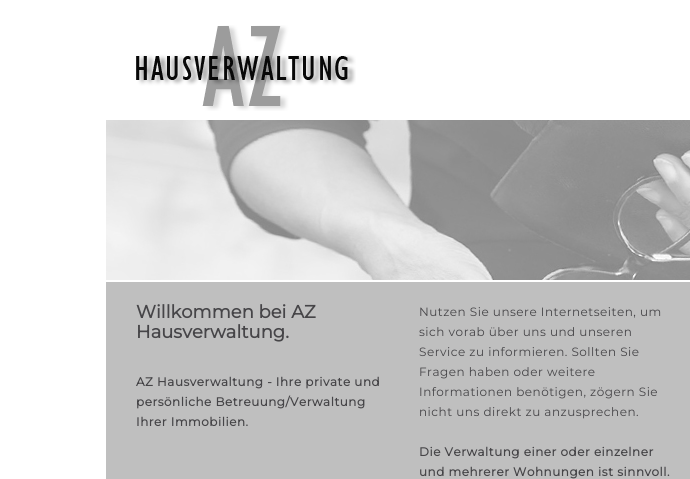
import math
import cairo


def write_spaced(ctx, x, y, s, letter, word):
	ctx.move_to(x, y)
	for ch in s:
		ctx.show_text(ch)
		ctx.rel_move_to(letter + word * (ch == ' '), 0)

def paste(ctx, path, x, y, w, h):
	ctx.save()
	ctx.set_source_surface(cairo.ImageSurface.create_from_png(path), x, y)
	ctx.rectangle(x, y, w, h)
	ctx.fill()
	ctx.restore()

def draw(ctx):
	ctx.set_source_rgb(1, 1, 1)
	ctx.paint()
	paste(ctx, 'media/1.png', 136, 25, 220, 86)
	ctx.set_source_rgb(0.749, 0.749, 0.749)
	ctx.rectangle(106, 282, 584, 197)
	ctx.fill()
	paste(ctx, 'media/2.png', 106, 120, 584, 160)
	ctx.select_font_face('Montserrat', cairo.FONT_SLANT_NORMAL, cairo.FONT_WEIGHT_BOLD)
	ctx.set_font_size(18)
	ctx.set_source_rgb(0.275, 0.271, 0.282)
	ctx.move_to(136, 318)
	ctx.show_text('Willkommen bei AZ')
	ctx.move_to(136, 338)
	ctx.show_text('Hausverwaltung.')
	ctx.set_font_size(12)
	for x, y, s in [
		(136, 386, 'AZ Hausverwaltung - Ihre private und'),
		(136, 406, 'persönliche Betreuung/Verwaltung'),
		(136, 426, 'Ihrer Immobilien.'),
	]:
		write_spaced(ctx, x, y, s, 0.5, 0)
	ctx.select_font_face('Montserrat Thin')
	for x, y, s in [
		(419, 316, 'Nutzen Sie unsere Internetseiten, um'),
		(419, 336, 'sich vorab über uns und unseren'),
		(419, 356, 'Service zu informieren. Sollten Sie'),
		(419, 376, 'Fragen haben oder weitere'),
		(419, 396, 'Informationen benötigen, zögern Sie'),
		(419, 416, 'nicht uns direkt zu anzusprechen.'),
	]:
		write_spaced(ctx, x, y, s, 0.5, 0)
	ctx.select_font_face('Montserrat', cairo.FONT_SLANT_NORMAL, cairo.FONT_WEIGHT_BOLD)
	write_spaced(ctx, 419, 456, 'Die Verwaltung einer oder einzelner', 0.5, 0)
	write_spaced(ctx, 419, 476, 'und mehrerer Wohnungen ist sinnvoll.', 0.5, 0)


surface = cairo.ImageSurface(cairo.FORMAT_RGB24, 690, 479)
ctx = cairo.Context(surface)
options = cairo.FontOptions()
options.set_hint_metrics(cairo.HINT_METRICS_OFF)
options.set_hint_style(cairo.HINT_STYLE_NONE)
ctx.set_font_options(options)
ctx.set_miter_limit(4)
draw(ctx)
surface.write_to_png('image.png')
